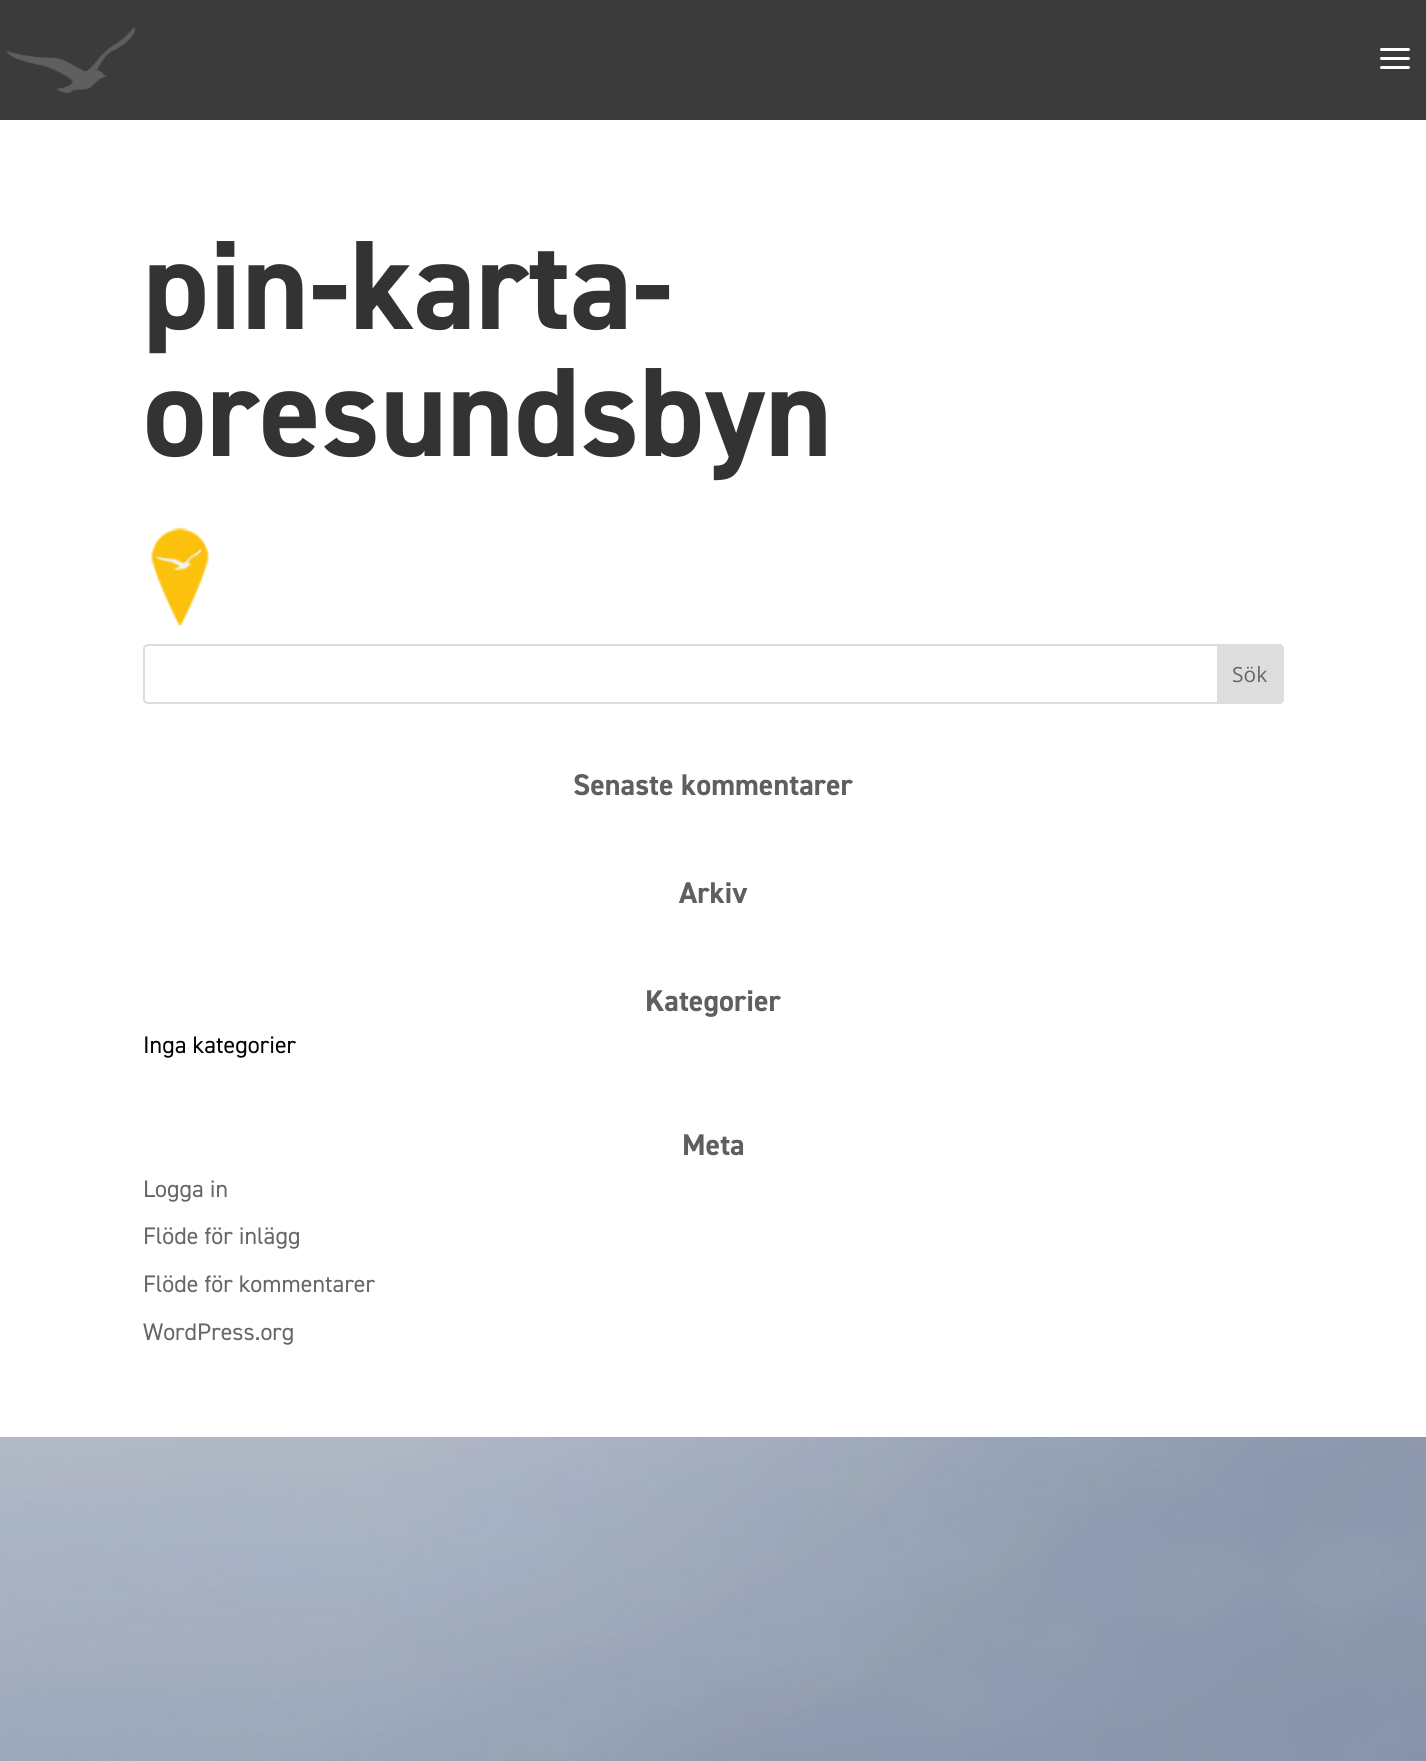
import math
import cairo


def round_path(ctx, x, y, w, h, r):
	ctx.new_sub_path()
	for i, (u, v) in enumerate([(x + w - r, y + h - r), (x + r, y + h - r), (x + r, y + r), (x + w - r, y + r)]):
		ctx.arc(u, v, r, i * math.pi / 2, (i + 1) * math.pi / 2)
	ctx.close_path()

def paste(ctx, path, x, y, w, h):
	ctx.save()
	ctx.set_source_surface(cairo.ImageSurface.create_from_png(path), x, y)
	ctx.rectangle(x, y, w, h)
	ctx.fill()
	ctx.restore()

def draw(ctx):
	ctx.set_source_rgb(1, 1, 1)
	ctx.paint()
	paste(ctx, 'media/1.png', 0, 1437, 1426, 324)
	ctx.set_source_rgb(0.231, 0.231, 0.231)
	ctx.rectangle(0, 0, 1426, 120)
	ctx.fill()
	paste(ctx, 'media/2.png', 5, 27, 131, 66)
	paste(ctx, 'media/3.png', 1380, 48, 30, 21)
	ctx.select_font_face('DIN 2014', cairo.FONT_SLANT_NORMAL, cairo.FONT_WEIGHT_BOLD)
	ctx.set_font_size(127.5)
	ctx.set_source_rgb(0.2, 0.2, 0.2)
	ctx.move_to(143, 329)
	ctx.show_text('pin-karta-')
	ctx.move_to(143, 456)
	ctx.show_text('oresundsbyn')
	paste(ctx, 'media/4.png', 151, 527, 58, 99)
	round_path(ctx, 144, 645, 1139, 58, 4)
	ctx.set_source_rgb(0.867, 0.867, 0.867)
	ctx.stroke()
	ctx.new_path()
	ctx.move_to(1218, 645)
	ctx.line_to(1279, 645)
	ctx.curve_to(1281, 645, 1283, 647, 1283, 649)
	ctx.line_to(1283, 699)
	ctx.curve_to(1283, 701, 1281, 703, 1279, 703)
	ctx.line_to(1218, 703)
	ctx.close_path()
	ctx.fill_preserve()
	ctx.stroke()
	ctx.select_font_face('Open Sans')
	ctx.set_font_size(21)
	ctx.set_source_rgb(0.4, 0.4, 0.4)
	ctx.move_to(1232, 682)
	ctx.show_text('Sök')
	ctx.select_font_face('DIN 2014', cairo.FONT_SLANT_NORMAL, cairo.FONT_WEIGHT_BOLD)
	ctx.set_font_size(30)
	ctx.set_source_rgb(0.376, 0.369, 0.369)
	for x, y, s in [
		(573, 795, 'Senaste kommentarer'),
		(679, 903, 'Arkiv'),
		(645, 1011, 'Kategorier'),
	]:
		ctx.move_to(x, y)
		ctx.show_text(s)
	ctx.select_font_face('DIN 2014')
	ctx.set_font_size(24)
	ctx.set_source_rgb(0, 0, 0)
	ctx.move_to(143, 1053)
	ctx.show_text('Inga kategorier')
	ctx.select_font_face('DIN 2014', cairo.FONT_SLANT_NORMAL, cairo.FONT_WEIGHT_BOLD)
	ctx.set_font_size(30)
	ctx.set_source_rgb(0.376, 0.369, 0.369)
	ctx.move_to(682, 1155)
	ctx.show_text('Meta')
	ctx.select_font_face('DIN 2014')
	ctx.set_font_size(24)
	ctx.set_source_rgb(0.4, 0.4, 0.4)
	for x, y, s in [
		(143, 1197, 'Logga in'),
		(143, 1244, 'Flöde för inlägg'),
		(143, 1292, 'Flöde för kommentarer'),
		(143, 1340, 'WordPress.org'),
	]:
		ctx.move_to(x, y)
		ctx.show_text(s)


surface = cairo.ImageSurface(cairo.FORMAT_RGB24, 1426, 1761)
ctx = cairo.Context(surface)
options = cairo.FontOptions()
options.set_hint_metrics(cairo.HINT_METRICS_OFF)
options.set_hint_style(cairo.HINT_STYLE_NONE)
ctx.set_font_options(options)
ctx.set_miter_limit(4)
draw(ctx)
surface.write_to_png('image.png')
